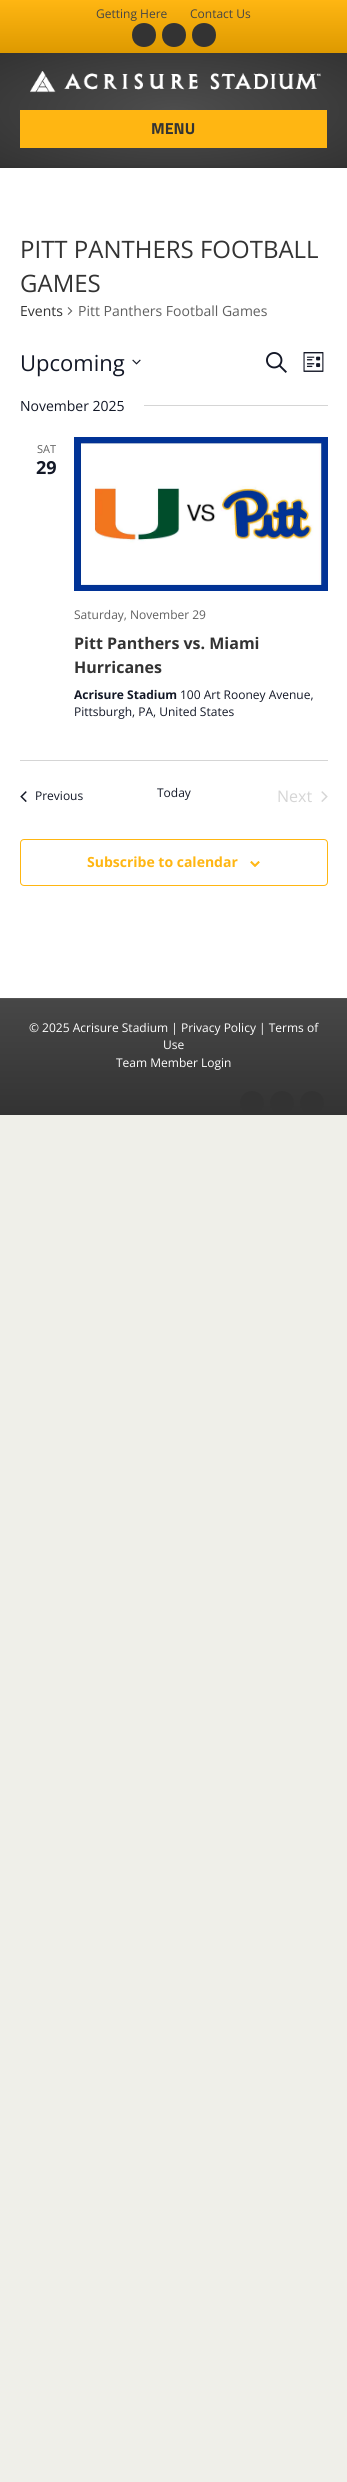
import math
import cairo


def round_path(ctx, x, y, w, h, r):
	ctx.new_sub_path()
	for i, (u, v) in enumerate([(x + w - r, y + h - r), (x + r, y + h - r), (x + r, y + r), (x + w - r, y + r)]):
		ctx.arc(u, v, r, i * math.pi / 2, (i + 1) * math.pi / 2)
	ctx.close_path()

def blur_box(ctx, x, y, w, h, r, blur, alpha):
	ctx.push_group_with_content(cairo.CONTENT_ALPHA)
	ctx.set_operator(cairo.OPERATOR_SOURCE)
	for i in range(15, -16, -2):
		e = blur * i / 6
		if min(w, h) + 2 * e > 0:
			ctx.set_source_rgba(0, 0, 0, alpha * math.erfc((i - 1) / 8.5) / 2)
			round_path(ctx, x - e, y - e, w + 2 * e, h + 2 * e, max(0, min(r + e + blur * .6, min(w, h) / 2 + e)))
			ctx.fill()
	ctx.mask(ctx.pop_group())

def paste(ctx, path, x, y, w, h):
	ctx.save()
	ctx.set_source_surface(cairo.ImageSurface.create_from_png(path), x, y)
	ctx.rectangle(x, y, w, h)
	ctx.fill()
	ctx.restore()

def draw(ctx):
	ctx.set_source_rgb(0.937, 0.937, 0.914)
	ctx.paint()
	gradient = cairo.LinearGradient(174, 0, 174, 52)
	gradient.add_color_stop_rgba(0, 1, 0.714, 0.071, 1)
	gradient.add_color_stop_rgba(1, 0.871, 0.604, 0, 1)
	ctx.set_source(gradient)
	ctx.rectangle(0, 0, 347, 52)
	ctx.fill()
	ctx.set_source_rgb(0.871, 0.604, 0)
	ctx.rectangle(0, 52, 347, 1)
	ctx.fill()
	ctx.select_font_face('Open Sans')
	ctx.set_font_size(12)
	ctx.set_source_rgb(0.271, 0.271, 0.271)
	ctx.move_to(96, 18)
	ctx.show_text('Getting Here')
	ctx.move_to(190, 18)
	ctx.show_text('Contact Us')
	ctx.set_source_rgb(0.2, 0.2, 0.2)
	ctx.new_path()
	ctx.move_to(132, 35)
	ctx.curve_to(132, 19, 156, 19, 156, 35)
	ctx.curve_to(156, 51, 132, 51, 132, 35)
	ctx.close_path()
	ctx.move_to(162, 35)
	ctx.curve_to(162, 19, 186, 19, 186, 35)
	ctx.curve_to(186, 51, 162, 51, 162, 35)
	ctx.close_path()
	ctx.fill()
	ctx.new_path()
	ctx.move_to(192, 35)
	ctx.curve_to(192, 19, 216, 19, 216, 35)
	ctx.curve_to(216, 51, 192, 51, 192, 35)
	ctx.close_path()
	ctx.fill()
	gradient = cairo.RadialGradient(0, 0, 0, 0, 0, 1)
	gradient.set_matrix(cairo.Matrix(1 / 245, 0, 0, 1 / 81, -1 * 174 / 245, -1 * 111 / 81))
	gradient.add_color_stop_rgba(0, 0.302, 0.302, 0.302, 1)
	gradient.add_color_stop_rgba(1, 0.2, 0.2, 0.2, 1)
	ctx.set_source(gradient)
	ctx.rectangle(0, 53, 347, 115)
	ctx.fill()
	paste(ctx, 'media/1.png', 30, 71, 291, 22)
	ctx.set_source_rgb(1, 0.714, 0.071)
	ctx.rectangle(20, 110, 307, 38)
	ctx.fill()
	ctx.select_font_face('Titillium Web', cairo.FONT_SLANT_NORMAL, cairo.FONT_WEIGHT_BOLD)
	ctx.set_font_size(16)
	ctx.set_source_rgb(0.2, 0.2, 0.2)
	ctx.move_to(151, 134)
	ctx.show_text('MENU')
	ctx.set_source_rgb(0, 0, 0)
	blur_box(ctx, 0, 168, 347, 830, 0, 2.5, 0.15)
	ctx.set_source_rgb(1, 1, 1)
	ctx.rectangle(0, 168, 347, 830)
	ctx.fill()
	ctx.select_font_face('Open Sans')
	ctx.set_font_size(24)
	ctx.set_source_rgb(0.2, 0.2, 0.2)
	ctx.move_to(20, 258)
	ctx.show_text('PITT PANTHERS FOOTBALL')
	ctx.move_to(20, 292)
	ctx.show_text('GAMES')
	ctx.set_font_size(14)
	ctx.move_to(20, 316)
	ctx.show_text('Events')
	paste(ctx, 'media/2.png', 67, 307, 6, 8)
	ctx.set_source_rgb(0.376, 0.376, 0.376)
	ctx.move_to(78, 316)
	ctx.show_text('Pitt Panthers Football Games')
	ctx.set_font_size(22)
	ctx.set_source_rgb(0.078, 0.094, 0.153)
	ctx.move_to(20, 371)
	ctx.show_text('Upcoming')
	paste(ctx, 'media/3.png', 132, 359, 9, 6)
	paste(ctx, 'media/4.png', 266, 352, 21, 21)
	paste(ctx, 'media/5.png', 303, 352, 21, 20)
	ctx.set_font_size(14)
	ctx.move_to(20, 411)
	ctx.show_text('November 2025')
	ctx.set_source_rgb(0.835, 0.835, 0.835)
	ctx.rectangle(144, 405, 184, 1)
	ctx.fill()
	ctx.set_font_size(11)
	ctx.set_source_rgb(0.376, 0.376, 0.376)
	ctx.move_to(37, 453)
	ctx.show_text('SAT')
	ctx.select_font_face('Open Sans', cairo.FONT_SLANT_NORMAL, cairo.FONT_WEIGHT_BOLD)
	ctx.set_font_size(18)
	ctx.set_source_rgb(0.078, 0.094, 0.153)
	ctx.move_to(36, 474)
	ctx.show_text('29')
	paste(ctx, 'media/6.png', 74, 437, 254, 154)
	ctx.select_font_face('Open Sans')
	ctx.set_font_size(12)
	ctx.set_source_rgb(0.376, 0.376, 0.376)
	ctx.move_to(74, 619)
	ctx.show_text('Saturday, November 29')
	ctx.select_font_face('Open Sans', cairo.FONT_SLANT_NORMAL, cairo.FONT_WEIGHT_BOLD)
	ctx.set_font_size(16)
	ctx.set_source_rgb(0.2, 0.2, 0.2)
	ctx.move_to(74, 649)
	ctx.show_text('Pitt Panthers vs. Miami')
	ctx.move_to(74, 673)
	ctx.show_text('Hurricanes')
	ctx.set_font_size(12)
	ctx.set_source_rgb(0.078, 0.094, 0.153)
	ctx.move_to(74, 699)
	ctx.show_text('Acrisure Stadium')
	ctx.select_font_face('Open Sans')
	ctx.move_to(180, 699)
	ctx.show_text('100 Art Rooney Avenue,')
	ctx.move_to(74, 716)
	ctx.show_text('Pittsburgh, PA, United States')
	ctx.set_source_rgb(0.835, 0.835, 0.835)
	ctx.rectangle(20, 760, 308, 1)
	ctx.fill()
	paste(ctx, 'media/7.png', 20, 791, 7, 11)
	ctx.set_source_rgb(0.078, 0.094, 0.153)
	ctx.move_to(35, 800)
	ctx.show_text('Previous')
	ctx.move_to(157, 797)
	ctx.show_text('Today')
	ctx.set_font_size(16)
	ctx.set_source_rgb(0.835, 0.835, 0.835)
	ctx.move_to(277, 802)
	ctx.show_text('Next')
	paste(ctx, 'media/8.png', 321, 791, 7, 11)
	round_path(ctx, 20.5, 839.5, 307, 46, 3.5)
	ctx.set_source_rgb(1, 0.714, 0.071)
	ctx.set_line_width(1)
	ctx.stroke()
	ctx.select_font_face('Open Sans', cairo.FONT_SLANT_NORMAL, cairo.FONT_WEIGHT_BOLD)
	ctx.set_font_size(14)
	ctx.move_to(87, 867)
	ctx.show_text('Subscribe to calendar')
	paste(ctx, 'media/9.png', 250, 861, 10, 6)
	gradient = cairo.LinearGradient(174, 999, 174, 1115)
	gradient.add_color_stop_rgba(0, 0.278, 0.278, 0.278, 1)
	gradient.add_color_stop_rgba(1, 0.2, 0.2, 0.2, 1)
	ctx.set_source(gradient)
	ctx.rectangle(0, 999, 347, 116)
	ctx.fill()
	ctx.set_source_rgb(0.329, 0.329, 0.329)
	ctx.rectangle(0, 998, 347, 1)
	ctx.fill()
	ctx.select_font_face('Open Sans')
	ctx.set_font_size(12)
	ctx.set_source_rgb(1, 1, 1)
	for x, y, s in [
		(29, 1032, '© 2025 Acrisure Stadium | Privacy Policy | Terms of'),
		(163, 1049, 'Use'),
		(116, 1067, 'Team Member Login'),
	]:
		ctx.move_to(x, y)
		ctx.show_text(s)
	ctx.set_source_rgb(0.2, 0.2, 0.2)
	ctx.new_path()
	ctx.move_to(240, 1103)
	ctx.curve_to(240, 1087, 264, 1087, 264, 1103)
	ctx.curve_to(264, 1119, 240, 1119, 240, 1103)
	ctx.close_path()
	ctx.move_to(270, 1103)
	ctx.curve_to(270, 1087, 294, 1087, 294, 1103)
	ctx.curve_to(294, 1119, 270, 1119, 270, 1103)
	ctx.close_path()
	ctx.fill()
	ctx.new_path()
	ctx.move_to(300, 1103)
	ctx.curve_to(300, 1087, 324, 1087, 324, 1103)
	ctx.curve_to(324, 1119, 300, 1119, 300, 1103)
	ctx.close_path()
	ctx.fill()


surface = cairo.ImageSurface(cairo.FORMAT_RGB24, 347, 2482)
ctx = cairo.Context(surface)
options = cairo.FontOptions()
options.set_hint_metrics(cairo.HINT_METRICS_OFF)
options.set_hint_style(cairo.HINT_STYLE_NONE)
ctx.set_font_options(options)
ctx.set_miter_limit(4)
draw(ctx)
surface.write_to_png('image.png')
